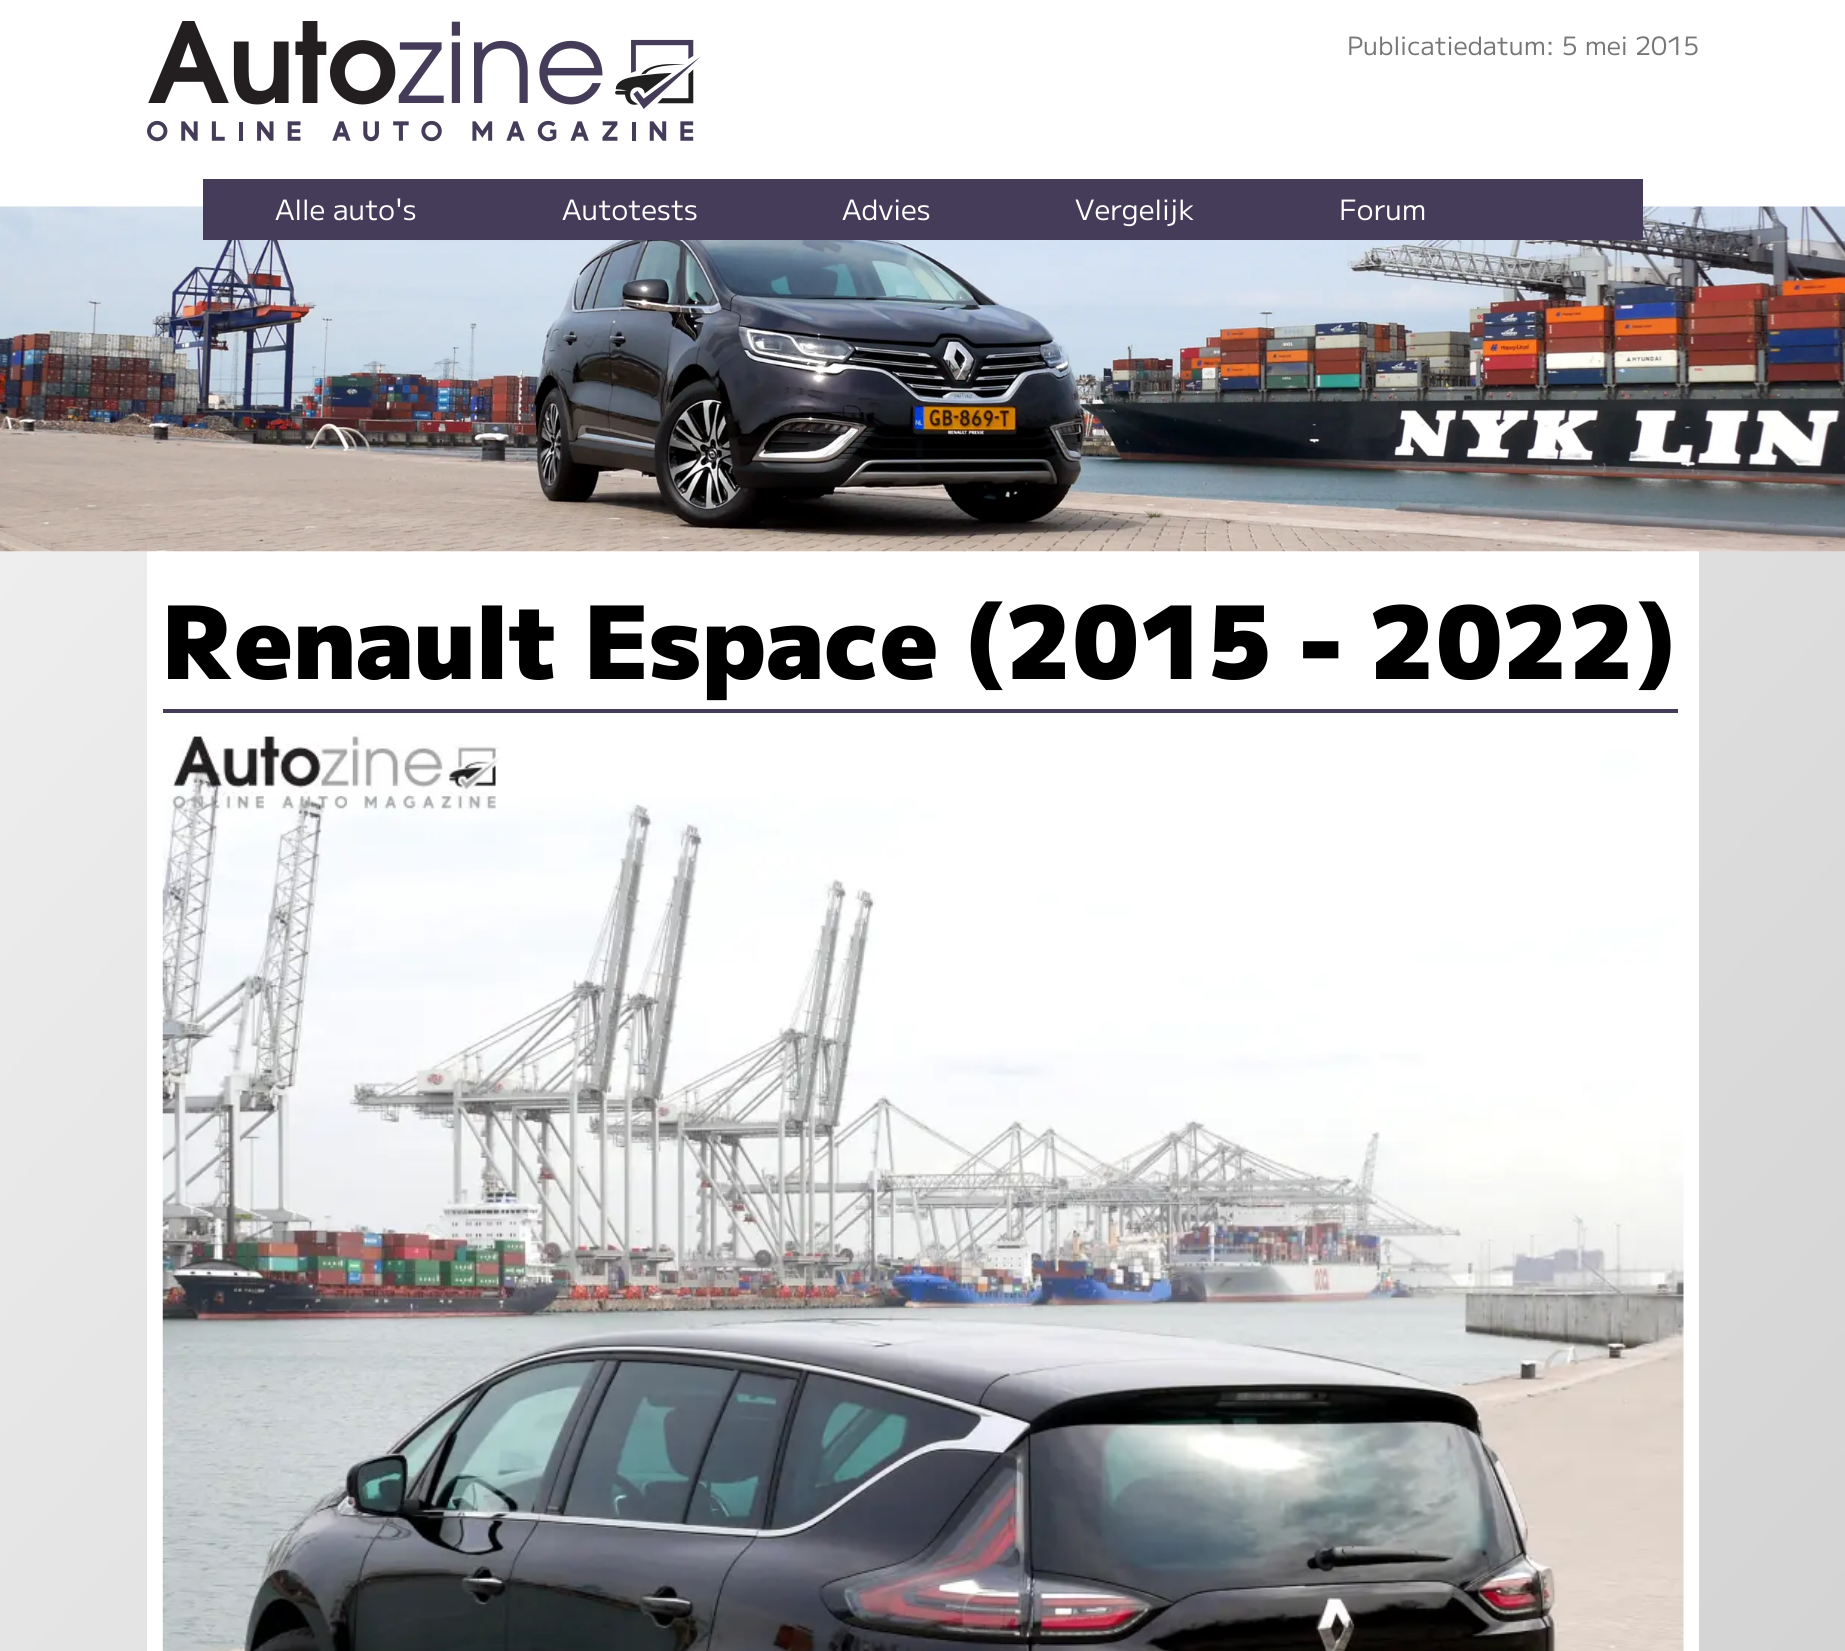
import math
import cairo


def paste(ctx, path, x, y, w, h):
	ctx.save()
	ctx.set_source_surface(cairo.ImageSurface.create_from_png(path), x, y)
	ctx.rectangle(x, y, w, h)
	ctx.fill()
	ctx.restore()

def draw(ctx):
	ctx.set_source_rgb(1, 1, 1)
	ctx.paint()
	paste(ctx, 'media/1.png', 147, 21, 554, 121)
	ctx.select_font_face('M PLUS 1')
	ctx.set_font_size(25.25)
	ctx.set_source_rgb(0.463, 0.463, 0.463)
	ctx.move_to(1347, 55)
	ctx.show_text('Publicatiedatum: 5 mei 2015')
	gradient = cairo.LinearGradient(-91, 652, 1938, 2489)
	gradient.add_color_stop_rgba(0, 0.933, 0.933, 0.933, 1)
	gradient.add_color_stop_rgba(1, 0.8, 0.8, 0.8, 1)
	ctx.set_source(gradient)
	ctx.rectangle(0, 551, 1845, 1100)
	ctx.fill()
	ctx.set_source_rgb(1, 1, 1)
	ctx.rectangle(147, 551, 1552, 1100)
	ctx.fill()
	paste(ctx, 'media/2.png', 0, 206, 1845, 346)
	ctx.set_source_rgb(0.267, 0.235, 0.349)
	ctx.rectangle(203, 179, 1440, 61)
	ctx.fill()
	ctx.set_font_size(28)
	ctx.set_source_rgb(1, 1, 1)
	for x, y, s in [
		(275, 220, 'Alle auto\'s'),
		(562, 220, 'Autotests'),
		(842, 220, 'Advies'),
		(1075, 220, 'Vergelijk'),
		(1339, 220, 'Forum'),
	]:
		ctx.move_to(x, y)
		ctx.show_text(s)
	ctx.set_source_rgb(0.267, 0.235, 0.349)
	ctx.rectangle(163, 709, 1515, 4)
	ctx.fill()
	ctx.select_font_face('M PLUS 1 Black')
	ctx.set_font_size(100.75)
	ctx.set_source_rgb(0, 0, 0)
	ctx.move_to(162, 679)
	ctx.show_text('Renault Espace (2015 - 2022)')
	paste(ctx, 'media/3.png', 162, 732, 1522, 919)


surface = cairo.ImageSurface(cairo.FORMAT_RGB24, 1845, 1651)
ctx = cairo.Context(surface)
options = cairo.FontOptions()
options.set_hint_metrics(cairo.HINT_METRICS_OFF)
options.set_hint_style(cairo.HINT_STYLE_NONE)
ctx.set_font_options(options)
ctx.set_miter_limit(4)
draw(ctx)
surface.write_to_png('image.png')
